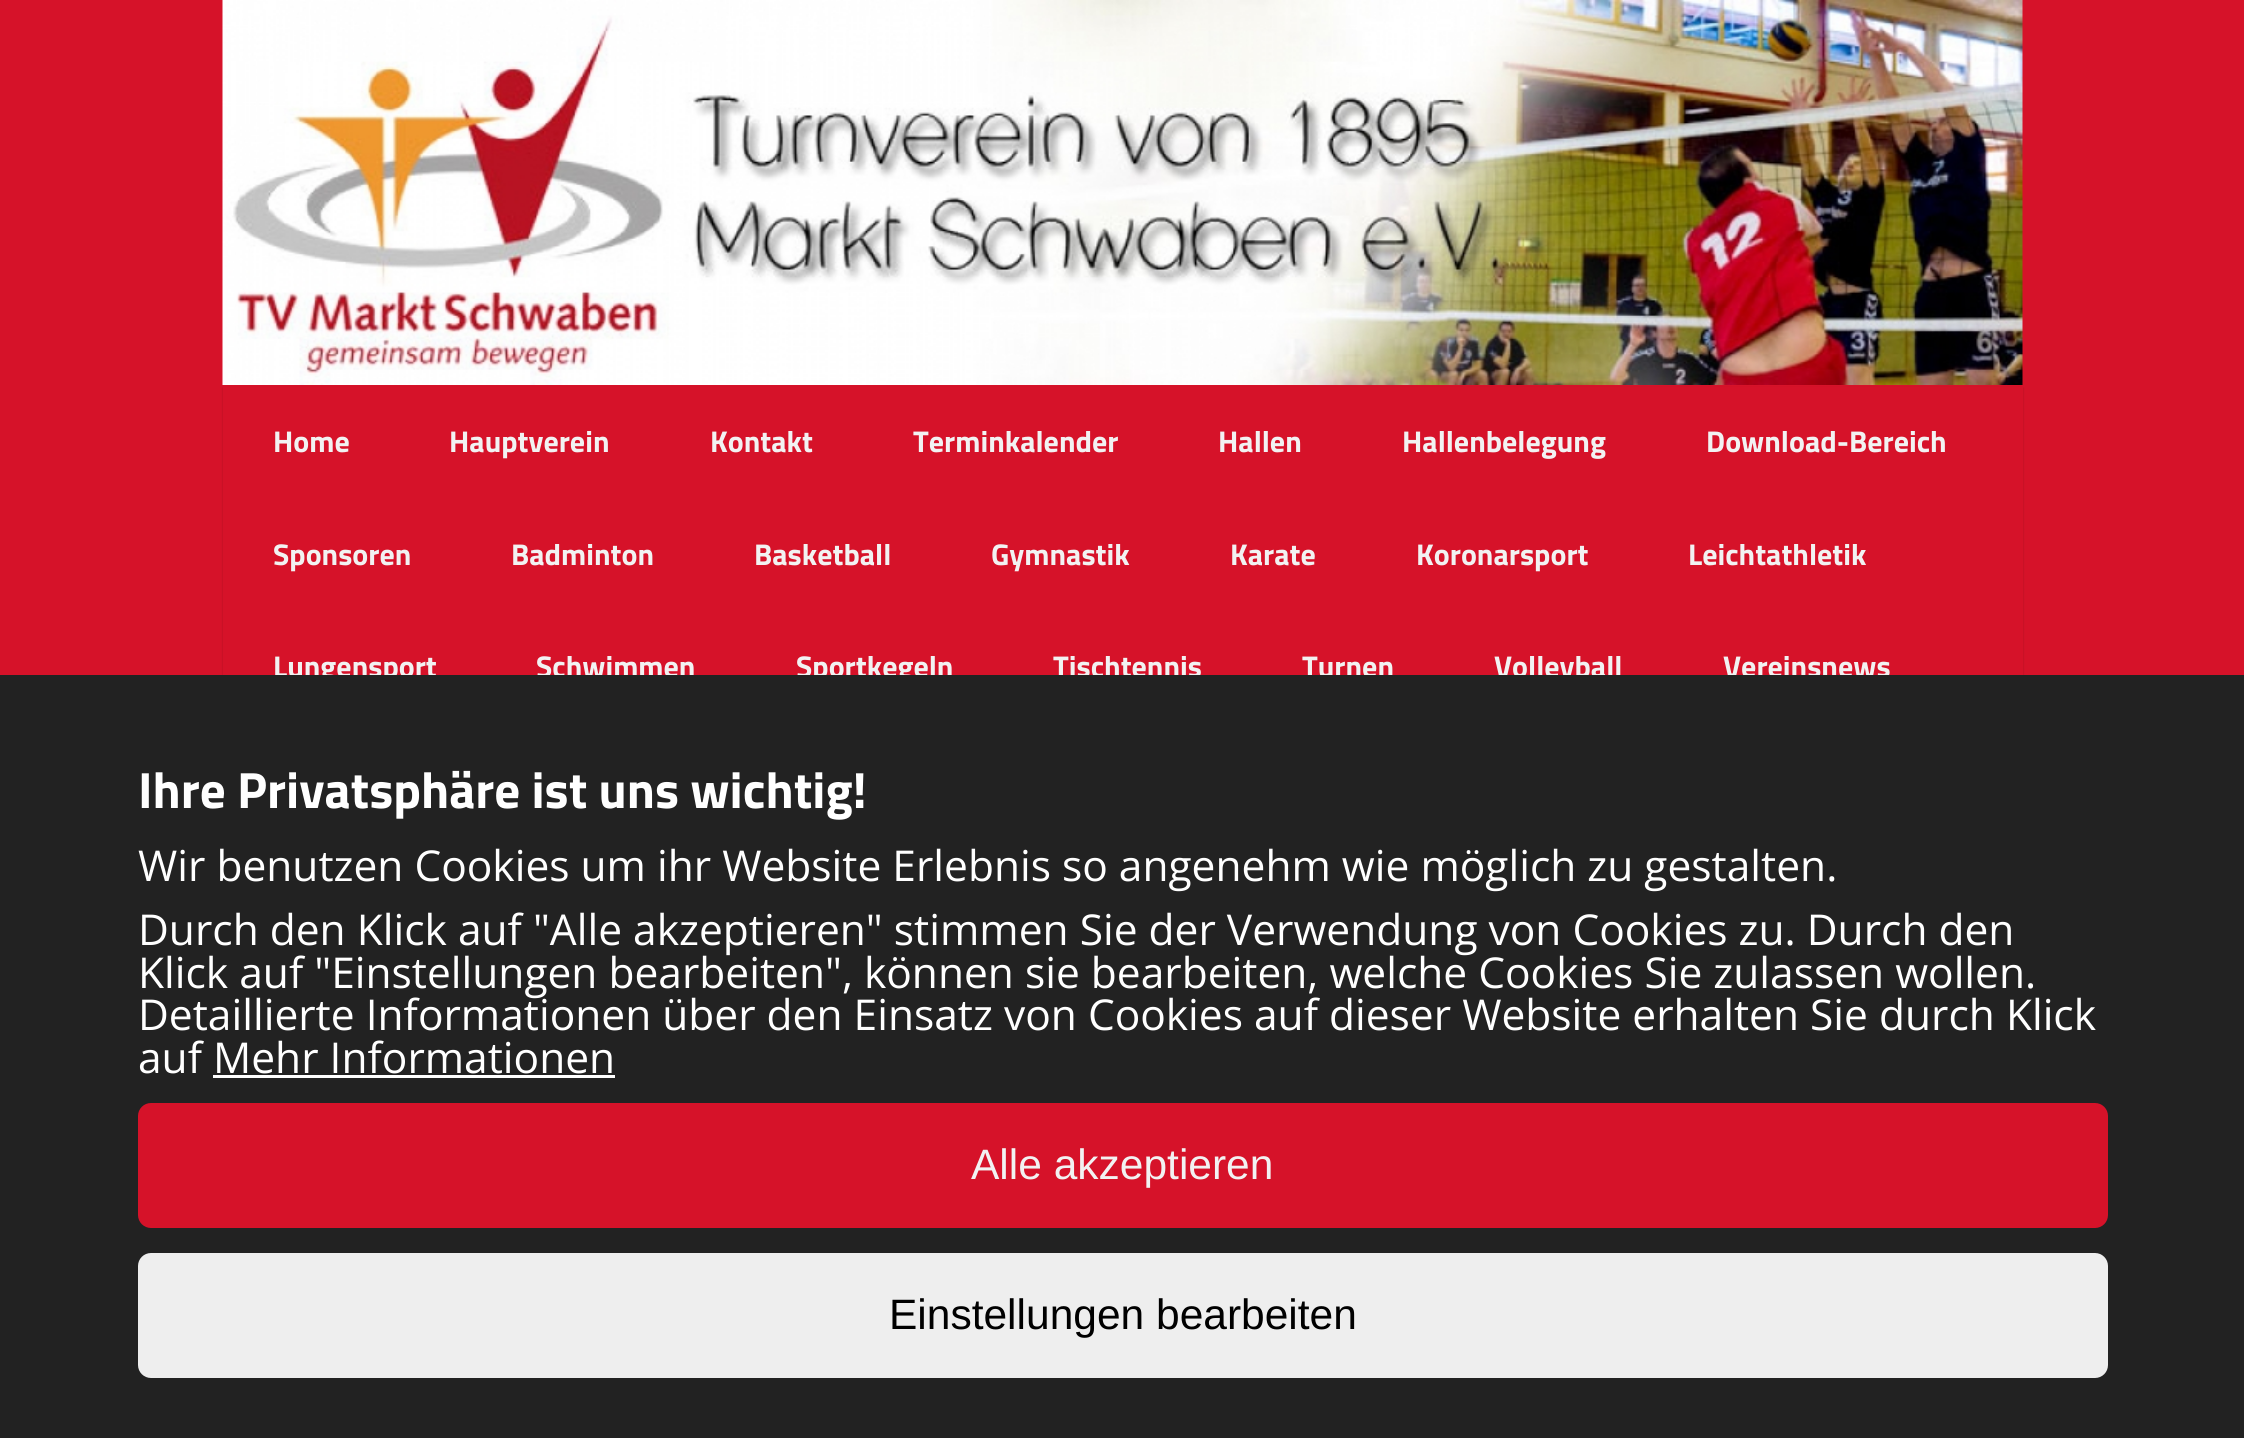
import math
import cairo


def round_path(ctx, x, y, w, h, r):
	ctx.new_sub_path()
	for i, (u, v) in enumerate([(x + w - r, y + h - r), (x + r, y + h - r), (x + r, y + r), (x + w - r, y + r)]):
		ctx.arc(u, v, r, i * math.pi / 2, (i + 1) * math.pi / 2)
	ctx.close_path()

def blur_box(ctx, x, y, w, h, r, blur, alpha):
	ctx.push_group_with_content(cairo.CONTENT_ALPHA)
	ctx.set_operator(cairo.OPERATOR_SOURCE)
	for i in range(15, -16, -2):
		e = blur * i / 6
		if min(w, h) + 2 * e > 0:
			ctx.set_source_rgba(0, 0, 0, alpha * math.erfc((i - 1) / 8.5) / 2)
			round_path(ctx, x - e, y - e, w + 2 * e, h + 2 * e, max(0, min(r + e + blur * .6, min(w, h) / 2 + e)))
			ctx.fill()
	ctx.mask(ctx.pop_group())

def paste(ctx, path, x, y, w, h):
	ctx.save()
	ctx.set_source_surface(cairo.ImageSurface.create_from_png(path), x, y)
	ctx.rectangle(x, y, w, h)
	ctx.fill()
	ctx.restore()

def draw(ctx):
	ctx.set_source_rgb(0.839, 0.071, 0.161)
	ctx.paint()
	paste(ctx, 'media/1.png', 222, 0, 1801, 385)
	ctx.set_source_rgb(0, 0, 0)
	blur_box(ctx, 223, 388, 1800, 337, 0, 1, 0.2)
	ctx.set_source_rgb(0.839, 0.071, 0.161)
	ctx.rectangle(223, 387, 1800, 288)
	ctx.fill()
	ctx.select_font_face('Titillium Web', cairo.FONT_SLANT_NORMAL, cairo.FONT_WEIGHT_BOLD)
	ctx.set_font_size(30)
	ctx.set_source_rgb(0.949, 0.949, 0.949)
	for x, y, s in [
		(273, 452, 'Home'),
		(449, 452, 'Hauptverein'),
		(710, 452, 'Kontakt'),
		(913, 452, 'Terminkalender'),
		(1218, 452, 'Hallen'),
		(1402, 452, 'Hallenbelegung'),
		(1706, 452, 'Download-Bereich'),
		(273, 565, 'Sponsoren'),
		(511, 565, 'Badminton'),
		(754, 565, 'Basketball'),
		(991, 565, 'Gymnastik'),
		(1230, 565, 'Karate'),
		(1416, 565, 'Koronarsport'),
		(1688, 565, 'Leichtathletik'),
		(273, 677, 'Lungensport'),
		(536, 677, 'Schwimmen'),
		(796, 677, 'Sportkegeln'),
		(1053, 677, 'Tischtennis'),
		(1302, 677, 'Turnen'),
		(1494, 677, 'Volleyball'),
		(1723, 677, 'Vereinsnews'),
	]:
		ctx.move_to(x, y)
		ctx.show_text(s)
	ctx.set_source_rgb(0.133, 0.133, 0.133)
	ctx.rectangle(0, 675, 2244, 763)
	ctx.fill()
	ctx.set_font_size(51)
	ctx.set_source_rgb(1, 1, 1)
	ctx.move_to(138, 808)
	ctx.show_text('Ihre Privatsphäre ist uns wichtig!')
	ctx.select_font_face('Open Sans')
	ctx.set_font_size(42.5)
	for x, y, s in [
		(138, 881, 'Wir benutzen Cookies um ihr Website Erlebnis so angenehm wie möglich zu gestalten.'),
		(138, 945, 'Durch den Klick auf "Alle akzeptieren" stimmen Sie der Verwendung von Cookies zu. Durch den'),
		(138, 988, 'Klick auf "Einstellungen bearbeiten", können sie bearbeiten, welche Cookies Sie zulassen wollen.'),
		(138, 1030, 'Detaillierte Informationen über den Einsatz von Cookies auf dieser Website erhalten Sie durch Klick'),
		(138, 1073, 'auf Mehr Informationen'),
	]:
		ctx.move_to(x, y)
		ctx.show_text(s)
	ctx.rectangle(213, 1075, 402, 3)
	ctx.fill()
	ctx.set_source_rgb(0.839, 0.071, 0.161)
	round_path(ctx, 138, 1103, 1970, 125, 13)
	ctx.fill()
	ctx.select_font_face('Liberation Sans')
	ctx.set_source_rgb(0.949, 0.949, 0.949)
	ctx.move_to(971, 1179)
	ctx.show_text('Alle akzeptieren')
	ctx.set_source_rgb(0.933, 0.933, 0.933)
	round_path(ctx, 138, 1253, 1970, 125, 13)
	ctx.fill()
	ctx.set_source_rgb(0, 0, 0)
	ctx.move_to(889, 1329)
	ctx.show_text('Einstellungen bearbeiten')


surface = cairo.ImageSurface(cairo.FORMAT_RGB24, 2244, 1438)
ctx = cairo.Context(surface)
options = cairo.FontOptions()
options.set_hint_metrics(cairo.HINT_METRICS_OFF)
options.set_hint_style(cairo.HINT_STYLE_NONE)
ctx.set_font_options(options)
ctx.set_miter_limit(4)
draw(ctx)
surface.write_to_png('image.png')
